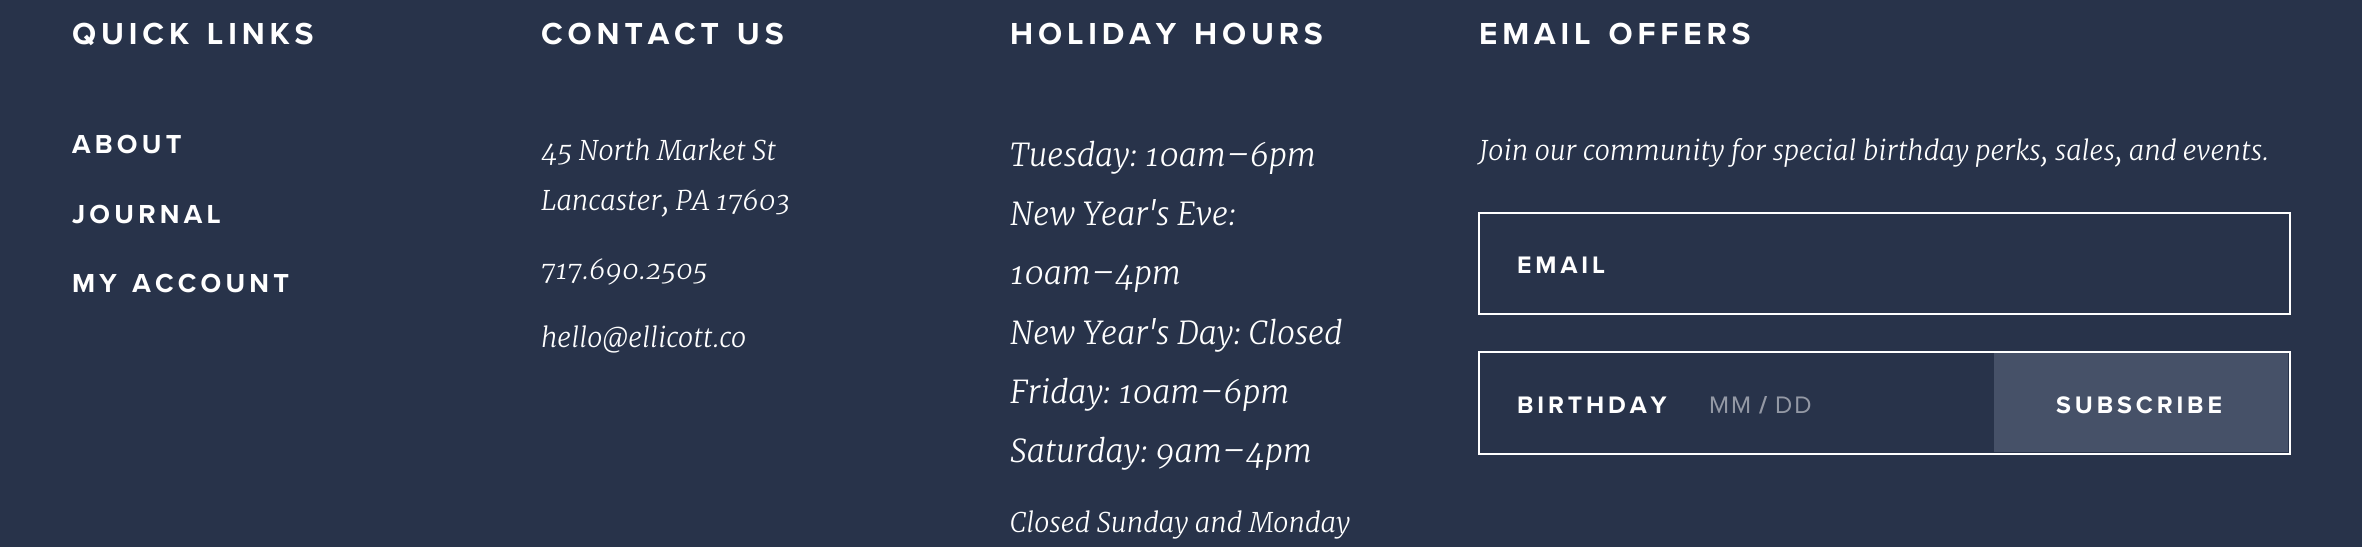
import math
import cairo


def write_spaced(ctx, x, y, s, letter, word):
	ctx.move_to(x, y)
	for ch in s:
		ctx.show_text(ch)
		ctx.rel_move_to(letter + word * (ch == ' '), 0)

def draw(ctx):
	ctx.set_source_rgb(0.157, 0.2, 0.29)
	ctx.paint()
	ctx.select_font_face('Proxima Nova', cairo.FONT_SLANT_NORMAL, cairo.FONT_WEIGHT_BOLD)
	ctx.set_font_size(31.5)
	ctx.set_source_rgb(1, 1, 1)
	write_spaced(ctx, 72, 44, 'QUICK LINKS', 4.9, 0)
	ctx.set_font_size(27)
	for x, y, s in [
		(72, 153, 'ABOUT'),
		(72, 223, 'JOURNAL'),
		(72, 292, 'MY ACCOUNT'),
	]:
		write_spaced(ctx, x, y, s, 4.25, 0)
	ctx.set_font_size(31.5)
	write_spaced(ctx, 541, 44, 'CONTACT US', 4.9, 0)
	ctx.select_font_face('Merriweather Light', cairo.FONT_SLANT_ITALIC)
	ctx.set_font_size(27)
	for x, y, s in [
		(541, 160, '45 North Market St'),
		(541, 210, 'Lancaster, PA 17603'),
		(541, 279, '717.690.2505'),
		(541, 347, 'hello@ellicott.co'),
	]:
		ctx.move_to(x, y)
		ctx.show_text(s)
	ctx.select_font_face('Proxima Nova', cairo.FONT_SLANT_NORMAL, cairo.FONT_WEIGHT_BOLD)
	ctx.set_font_size(31.5)
	write_spaced(ctx, 1010, 44, 'HOLIDAY HOURS', 4.9, 0)
	ctx.select_font_face('Merriweather Light', cairo.FONT_SLANT_ITALIC)
	for x, y, s in [
		(1010, 166, 'Tuesday: 10am–6pm'),
		(1010, 225, 'New Year\'s Eve:'),
		(1010, 284, '10am–4pm'),
		(1010, 344, 'New Year\'s Day: Closed'),
		(1010, 403, 'Friday: 10am–6pm'),
		(1010, 462, 'Saturday: 9am–4pm'),
	]:
		ctx.move_to(x, y)
		ctx.show_text(s)
	ctx.set_font_size(27)
	ctx.move_to(1010, 532)
	ctx.show_text('Closed Sunday and Monday')
	ctx.select_font_face('Proxima Nova', cairo.FONT_SLANT_NORMAL, cairo.FONT_WEIGHT_BOLD)
	ctx.set_font_size(31.5)
	write_spaced(ctx, 1479, 44, 'EMAIL OFFERS', 4.9, 0)
	ctx.select_font_face('Merriweather Light', cairo.FONT_SLANT_ITALIC)
	ctx.set_font_size(27)
	ctx.move_to(1479, 160)
	ctx.show_text('Join our community for special birthday perks, sales, and events.')
	ctx.rectangle(1479, 213, 811, 101)
	ctx.stroke()
	ctx.select_font_face('Proxima Nova', cairo.FONT_SLANT_NORMAL, cairo.FONT_WEIGHT_BOLD)
	ctx.set_font_size(24.75)
	write_spaced(ctx, 1517, 273, 'EMAIL', 3.9, 0)
	ctx.rectangle(1479, 352, 811, 102)
	ctx.stroke()
	write_spaced(ctx, 1517, 413, 'BIRTHDAY', 3.9, 0)
	ctx.select_font_face('Proxima Nova')
	ctx.set_source_rgb(0.58, 0.6, 0.647)
	write_spaced(ctx, 1709, 413, 'MM', 2, 0)
	ctx.select_font_face('Proxima Nova', cairo.FONT_SLANT_NORMAL, cairo.FONT_WEIGHT_BOLD)
	write_spaced(ctx, 1759, 413, '/', 3.9, 0)
	ctx.select_font_face('Proxima Nova')
	write_spaced(ctx, 1775, 413, 'DD', 2, 0)
	ctx.set_source_rgb(0.275, 0.318, 0.408)
	ctx.rectangle(1994, 353, 294, 99)
	ctx.fill()
	ctx.select_font_face('Proxima Nova', cairo.FONT_SLANT_NORMAL, cairo.FONT_WEIGHT_BOLD)
	ctx.set_source_rgb(1, 1, 1)
	write_spaced(ctx, 2056, 413, 'SUBSCRIBE', 3.9, 0)


surface = cairo.ImageSurface(cairo.FORMAT_RGB24, 2362, 547)
ctx = cairo.Context(surface)
options = cairo.FontOptions()
options.set_hint_metrics(cairo.HINT_METRICS_OFF)
options.set_hint_style(cairo.HINT_STYLE_NONE)
ctx.set_font_options(options)
ctx.set_miter_limit(4)
draw(ctx)
surface.write_to_png('image.png')
